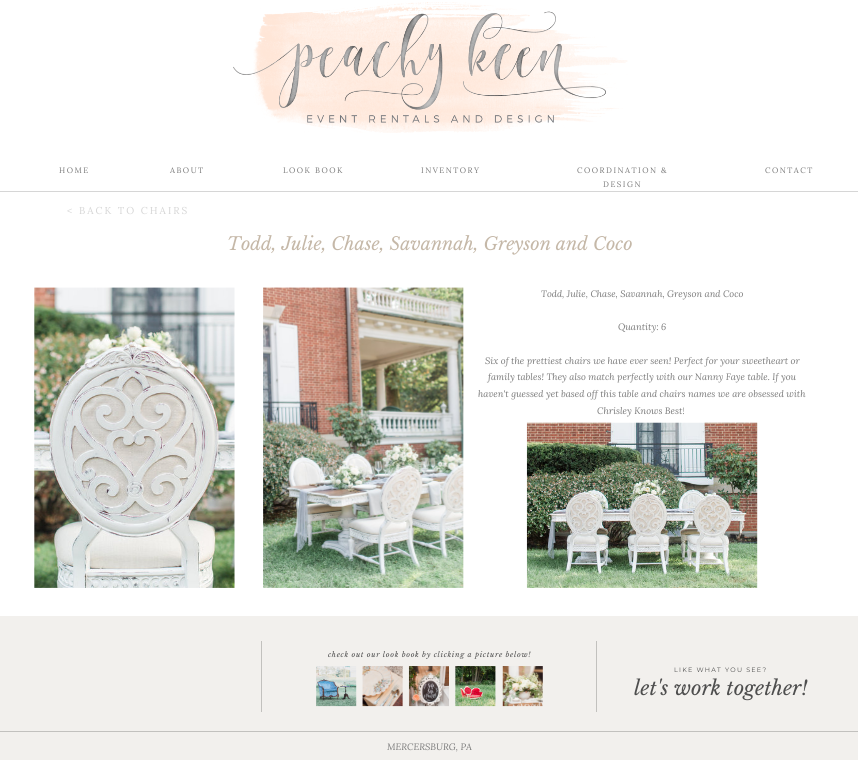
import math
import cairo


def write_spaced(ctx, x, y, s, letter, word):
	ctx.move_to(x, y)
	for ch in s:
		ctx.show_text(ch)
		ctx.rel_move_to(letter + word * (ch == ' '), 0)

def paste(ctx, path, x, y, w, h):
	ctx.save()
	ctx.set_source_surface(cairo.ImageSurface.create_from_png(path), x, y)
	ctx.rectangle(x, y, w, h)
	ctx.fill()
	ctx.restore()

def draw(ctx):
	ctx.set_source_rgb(1, 1, 1)
	ctx.paint()
	paste(ctx, 'media/1.png', 233, 2, 395, 131)
	ctx.select_font_face('Lora')
	ctx.set_font_size(7.9)
	ctx.set_source_rgb(0.475, 0.475, 0.475)
	for x, y, s in [
		(59, 173, 'HOME'),
		(170, 173, 'ABOUT'),
		(283, 173, 'LOOK BOOK'),
		(421, 173, 'INVENTORY'),
		(577, 173, 'COORDINATION &'),
		(603, 187, 'DESIGN'),
		(765, 173, 'CONTACT'),
	]:
		write_spaced(ctx, x, y, s, 1.5, 0)
	ctx.set_source_rgb(0.839, 0.839, 0.839)
	ctx.rectangle(0, 191, 858, 1)
	ctx.fill()
	ctx.set_font_size(10)
	write_spaced(ctx, 67, 214, '< BACK TO CHAIRS', 2, 0)
	ctx.select_font_face('Libre Baskerville', cairo.FONT_SLANT_ITALIC)
	ctx.set_font_size(17.9)
	ctx.set_source_rgb(0.773, 0.722, 0.659)
	ctx.move_to(227, 250)
	ctx.show_text('Todd, Julie, Chase, Savannah, Greyson and Coco')
	paste(ctx, 'media/2.png', 34, 287, 201, 301)
	paste(ctx, 'media/3.png', 263, 287, 201, 301)
	ctx.select_font_face('Lora', cairo.FONT_SLANT_ITALIC)
	ctx.set_font_size(9.3)
	ctx.set_source_rgb(0.475, 0.475, 0.475)
	for x, y, s in [
		(541, 297, 'Todd, Julie, Chase, Savannah, Greyson and Coco'),
		(618, 330, 'Quantity: 6'),
		(485, 364, 'Six of the prettiest chairs we have ever seen! Perfect for your sweetheart or'),
		(488, 380, 'family tables! They also match perfectly with our Nanny Faye table. If you'),
		(478, 397, 'haven\'t guessed yet based off this table and chairs names we are obsessed with'),
		(597, 414, 'Chrisley Knows Best!'),
	]:
		ctx.move_to(x, y)
		ctx.show_text(s)
	paste(ctx, 'media/4.png', 526, 422, 232, 166)
	ctx.set_source_rgb(0.949, 0.941, 0.929)
	ctx.rectangle(0, 616, 858, 144)
	ctx.fill()
	ctx.set_source_rgb(0.761, 0.757, 0.745)
	ctx.rectangle(261, 641, 1, 71)
	ctx.fill()
	ctx.select_font_face('Libre Baskerville', cairo.FONT_SLANT_ITALIC)
	ctx.set_font_size(7.15)
	ctx.set_source_rgb(0.306, 0.306, 0.306)
	write_spaced(ctx, 328, 657, 'check out our look book by clicking a picture below!', 0.7, 0)
	ctx.set_source_rgb(0.761, 0.757, 0.745)
	ctx.rectangle(596, 641, 1, 71)
	ctx.fill()
	paste(ctx, 'media/5.png', 316, 666, 41, 41)
	paste(ctx, 'media/6.png', 362, 666, 41, 41)
	paste(ctx, 'media/7.png', 408, 666, 41, 41)
	paste(ctx, 'media/8.png', 455, 666, 41, 41)
	paste(ctx, 'media/9.png', 502, 666, 41, 41)
	ctx.select_font_face('Montserrat Thin')
	ctx.set_font_size(6.4)
	ctx.set_source_rgb(0.306, 0.306, 0.306)
	write_spaced(ctx, 674, 672, 'LIKE WHAT YOU SEE?', 1.25, 0)
	ctx.select_font_face('Libre Baskerville', cairo.FONT_SLANT_ITALIC)
	ctx.set_font_size(20)
	ctx.move_to(634, 695)
	ctx.show_text('let\'s work together!')
	ctx.set_source_rgb(0.761, 0.757, 0.745)
	ctx.rectangle(0, 731, 858, 1)
	ctx.fill()
	ctx.select_font_face('Lora', cairo.FONT_SLANT_ITALIC)
	ctx.set_font_size(9.3)
	ctx.set_source_rgb(0.475, 0.475, 0.475)
	ctx.move_to(387, 750)
	ctx.show_text('MERCERSBURG, PA')


surface = cairo.ImageSurface(cairo.FORMAT_RGB24, 858, 782)
ctx = cairo.Context(surface)
options = cairo.FontOptions()
options.set_hint_metrics(cairo.HINT_METRICS_OFF)
options.set_hint_style(cairo.HINT_STYLE_NONE)
ctx.set_font_options(options)
ctx.set_miter_limit(4)
draw(ctx)
surface.write_to_png('image.png')
